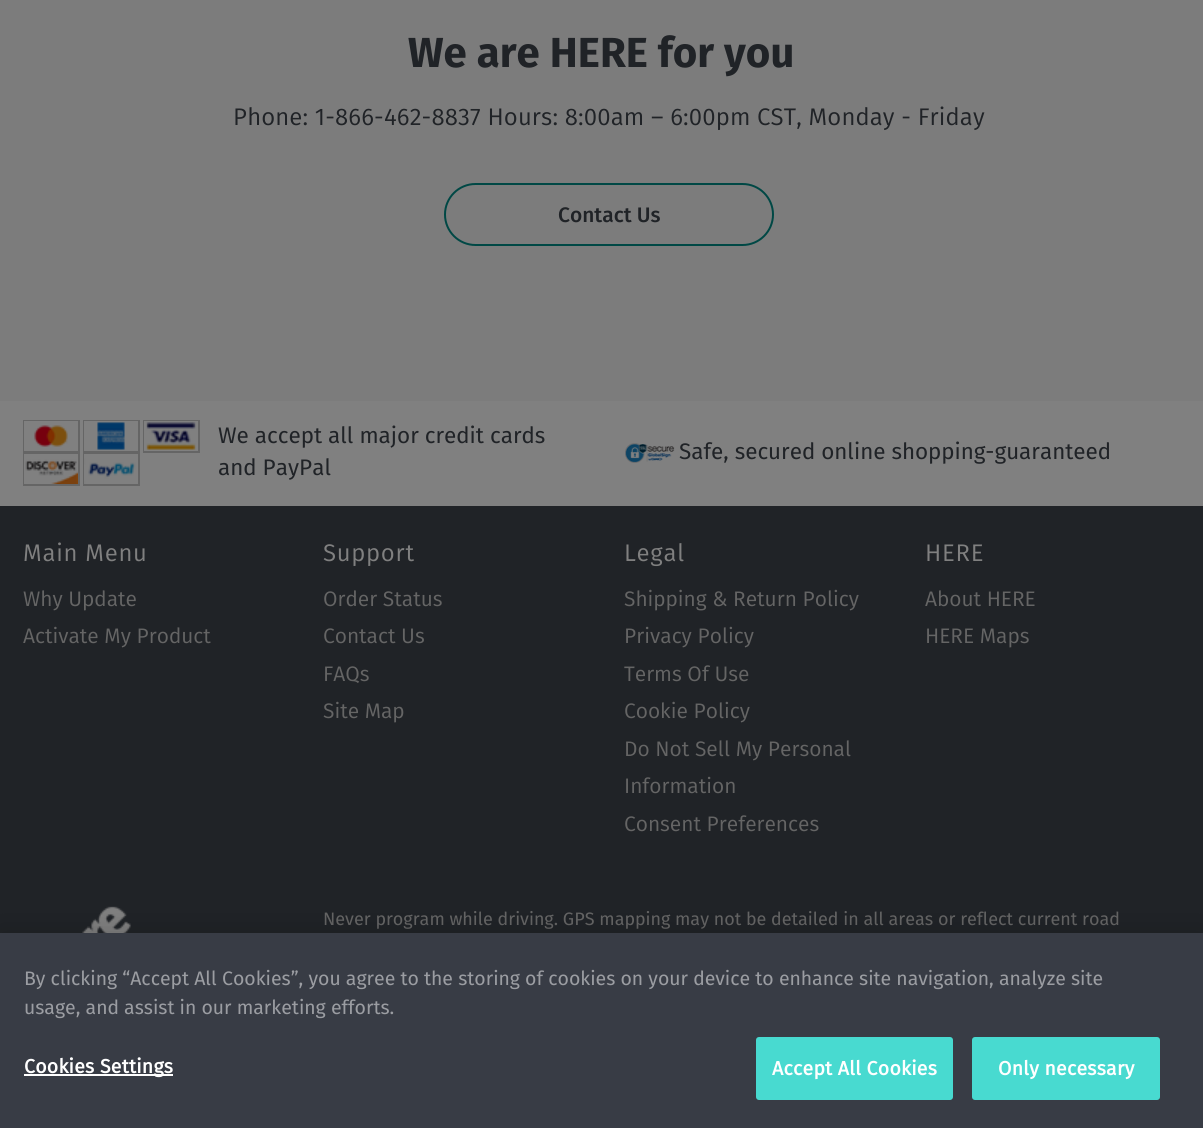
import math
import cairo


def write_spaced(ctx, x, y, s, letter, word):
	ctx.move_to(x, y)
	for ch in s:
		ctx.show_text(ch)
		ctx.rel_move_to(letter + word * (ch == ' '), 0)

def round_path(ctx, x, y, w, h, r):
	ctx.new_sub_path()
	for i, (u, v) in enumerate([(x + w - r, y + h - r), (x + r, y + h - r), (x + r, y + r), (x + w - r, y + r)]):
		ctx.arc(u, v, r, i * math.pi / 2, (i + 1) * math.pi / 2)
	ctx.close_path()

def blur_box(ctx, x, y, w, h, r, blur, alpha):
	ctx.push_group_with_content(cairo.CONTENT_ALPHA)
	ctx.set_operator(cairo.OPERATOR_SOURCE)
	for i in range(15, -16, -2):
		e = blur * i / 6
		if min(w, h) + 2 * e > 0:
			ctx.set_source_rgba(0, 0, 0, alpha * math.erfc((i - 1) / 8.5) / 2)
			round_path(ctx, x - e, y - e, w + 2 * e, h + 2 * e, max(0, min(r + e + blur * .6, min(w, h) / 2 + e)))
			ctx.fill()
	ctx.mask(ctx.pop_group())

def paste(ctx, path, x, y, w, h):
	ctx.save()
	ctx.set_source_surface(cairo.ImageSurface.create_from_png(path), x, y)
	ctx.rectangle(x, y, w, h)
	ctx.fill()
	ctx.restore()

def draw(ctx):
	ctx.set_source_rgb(0.502, 0.502, 0.502)
	ctx.paint()
	ctx.set_source_rgb(0.486, 0.486, 0.486)
	ctx.rectangle(0, 0, 1203, 401)
	ctx.fill()
	ctx.select_font_face('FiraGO', cairo.FONT_SLANT_NORMAL, cairo.FONT_WEIGHT_BOLD)
	ctx.set_font_size(42)
	ctx.set_source_rgb(0.125, 0.137, 0.153)
	ctx.move_to(408, 67)
	ctx.show_text('We are HERE for you')
	ctx.select_font_face('FiraGO')
	ctx.set_font_size(24)
	write_spaced(ctx, 233, 125, 'Phone: 1-866-462-8837 Hours: 8:00am – 6:00pm CST, Monday - Friday', 0.15, 0)
	round_path(ctx, 445, 184, 328, 61, 30.5)
	ctx.set_source_rgb(0, 0.282, 0.271)
	ctx.stroke()
	ctx.select_font_face('FiraGO Medium')
	ctx.set_font_size(21)
	ctx.set_source_rgb(0.125, 0.137, 0.153)
	ctx.move_to(558, 222)
	ctx.show_text('Contact Us')
	ctx.rectangle(24, 421, 55, 31)
	ctx.set_source_rgb(0.396, 0.396, 0.396)
	ctx.stroke()
	paste(ctx, 'media/1.png', 24, 421, 54, 30)
	ctx.rectangle(84, 421, 55, 31)
	ctx.stroke()
	paste(ctx, 'media/2.png', 84, 421, 54, 30)
	ctx.rectangle(144, 421, 55, 31)
	ctx.stroke()
	paste(ctx, 'media/3.png', 144, 421, 54, 30)
	ctx.rectangle(24, 454, 55, 31)
	ctx.stroke()
	paste(ctx, 'media/4.png', 24, 454, 54, 30)
	ctx.rectangle(84, 454, 55, 31)
	ctx.stroke()
	paste(ctx, 'media/5.png', 84, 454, 54, 30)
	ctx.select_font_face('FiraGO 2')
	ctx.set_font_size(22.5)
	ctx.set_source_rgb(0.125, 0.137, 0.153)
	ctx.move_to(218, 443)
	ctx.show_text('We accept all major credit cards')
	ctx.move_to(218, 475)
	ctx.show_text('and PayPal')
	paste(ctx, 'media/6.png', 625, 443, 50, 20)
	ctx.move_to(679, 459)
	ctx.show_text('Safe, secured online shopping-guaranteed')
	ctx.rectangle(0, 506, 1203, 427)
	ctx.fill()
	ctx.select_font_face('FiraGO')
	ctx.set_font_size(24)
	ctx.set_source_rgb(0.502, 0.502, 0.502)
	write_spaced(ctx, 23, 561, 'Main Menu', 0.75, 0)
	ctx.set_font_size(21)
	ctx.set_source_rgb(0.396, 0.396, 0.396)
	ctx.move_to(23, 606)
	ctx.show_text('Why Update')
	ctx.move_to(23, 643)
	ctx.show_text('Activate My Product')
	ctx.set_font_size(24)
	ctx.set_source_rgb(0.502, 0.502, 0.502)
	write_spaced(ctx, 323, 561, 'Support', 0.75, 0)
	ctx.set_font_size(21)
	ctx.set_source_rgb(0.396, 0.396, 0.396)
	for x, y, s in [
		(323, 606, 'Order Status'),
		(323, 643, 'Contact Us'),
		(323, 681, 'FAQs'),
		(323, 718, 'Site Map'),
	]:
		ctx.move_to(x, y)
		ctx.show_text(s)
	ctx.set_font_size(24)
	ctx.set_source_rgb(0.502, 0.502, 0.502)
	write_spaced(ctx, 624, 561, 'Legal', 0.75, 0)
	ctx.set_font_size(21)
	ctx.set_source_rgb(0.396, 0.396, 0.396)
	for x, y, s in [
		(624, 606, 'Shipping & Return Policy'),
		(624, 643, 'Privacy Policy'),
		(624, 681, 'Terms Of Use'),
		(624, 718, 'Cookie Policy'),
		(624, 756, 'Do Not Sell My Personal'),
		(624, 793, 'Information'),
		(624, 831, 'Consent Preferences'),
	]:
		ctx.move_to(x, y)
		ctx.show_text(s)
	ctx.set_font_size(24)
	ctx.set_source_rgb(0.502, 0.502, 0.502)
	write_spaced(ctx, 925, 561, 'HERE', 0.75, 0)
	ctx.set_font_size(21)
	ctx.set_source_rgb(0.396, 0.396, 0.396)
	ctx.move_to(925, 606)
	ctx.show_text('About HERE')
	ctx.move_to(925, 643)
	ctx.show_text('HERE Maps')
	paste(ctx, 'media/7.png', 82, 906, 49, 27)
	ctx.select_font_face('FiraGO 2')
	ctx.set_font_size(18)
	ctx.move_to(323, 925)
	ctx.show_text('Never program while driving. GPS mapping may not be detailed in all areas or reflect current road')
	ctx.set_source_rgb(0, 0, 0)
	blur_box(ctx, 0, 933, 1203, 195, 0, 13.5, 0.2)
	ctx.set_source_rgb(0.22, 0.235, 0.271)
	ctx.rectangle(0, 933, 1203, 195)
	ctx.fill()
	ctx.set_font_size(19.5)
	ctx.set_source_rgb(0.608, 0.616, 0.635)
	ctx.move_to(24, 985)
	ctx.show_text('By clicking “Accept All Cookies”, you agree to the storing of cookies on your device to enhance site navigation, analyze site')
	ctx.move_to(24, 1014)
	ctx.show_text('usage, and assist in our marketing efforts.')
	ctx.set_source_rgb(1, 1, 1)
	ctx.rectangle(24, 1074, 149, 2)
	ctx.fill()
	ctx.select_font_face('FiraGO 2', cairo.FONT_SLANT_NORMAL, cairo.FONT_WEIGHT_BOLD)
	write_spaced(ctx, 24, 1073, 'Cookies Settings', 0.25, 0)
	ctx.set_source_rgb(0.282, 0.855, 0.816)
	round_path(ctx, 757, 1038, 195, 61, 2)
	ctx.fill_preserve()
	ctx.stroke()
	ctx.set_source_rgb(1, 1, 1)
	write_spaced(ctx, 772, 1075, 'Accept All Cookies', 0.25, 0)
	ctx.set_source_rgb(0.282, 0.855, 0.816)
	round_path(ctx, 973, 1038, 186, 61, 2)
	ctx.fill_preserve()
	ctx.stroke()
	ctx.set_source_rgb(1, 1, 1)
	write_spaced(ctx, 998, 1075, 'Only necessary', 0.25, 0)


surface = cairo.ImageSurface(cairo.FORMAT_RGB24, 1203, 1128)
ctx = cairo.Context(surface)
options = cairo.FontOptions()
options.set_hint_metrics(cairo.HINT_METRICS_OFF)
options.set_hint_style(cairo.HINT_STYLE_NONE)
ctx.set_font_options(options)
ctx.set_miter_limit(4)
draw(ctx)
surface.write_to_png('image.png')
